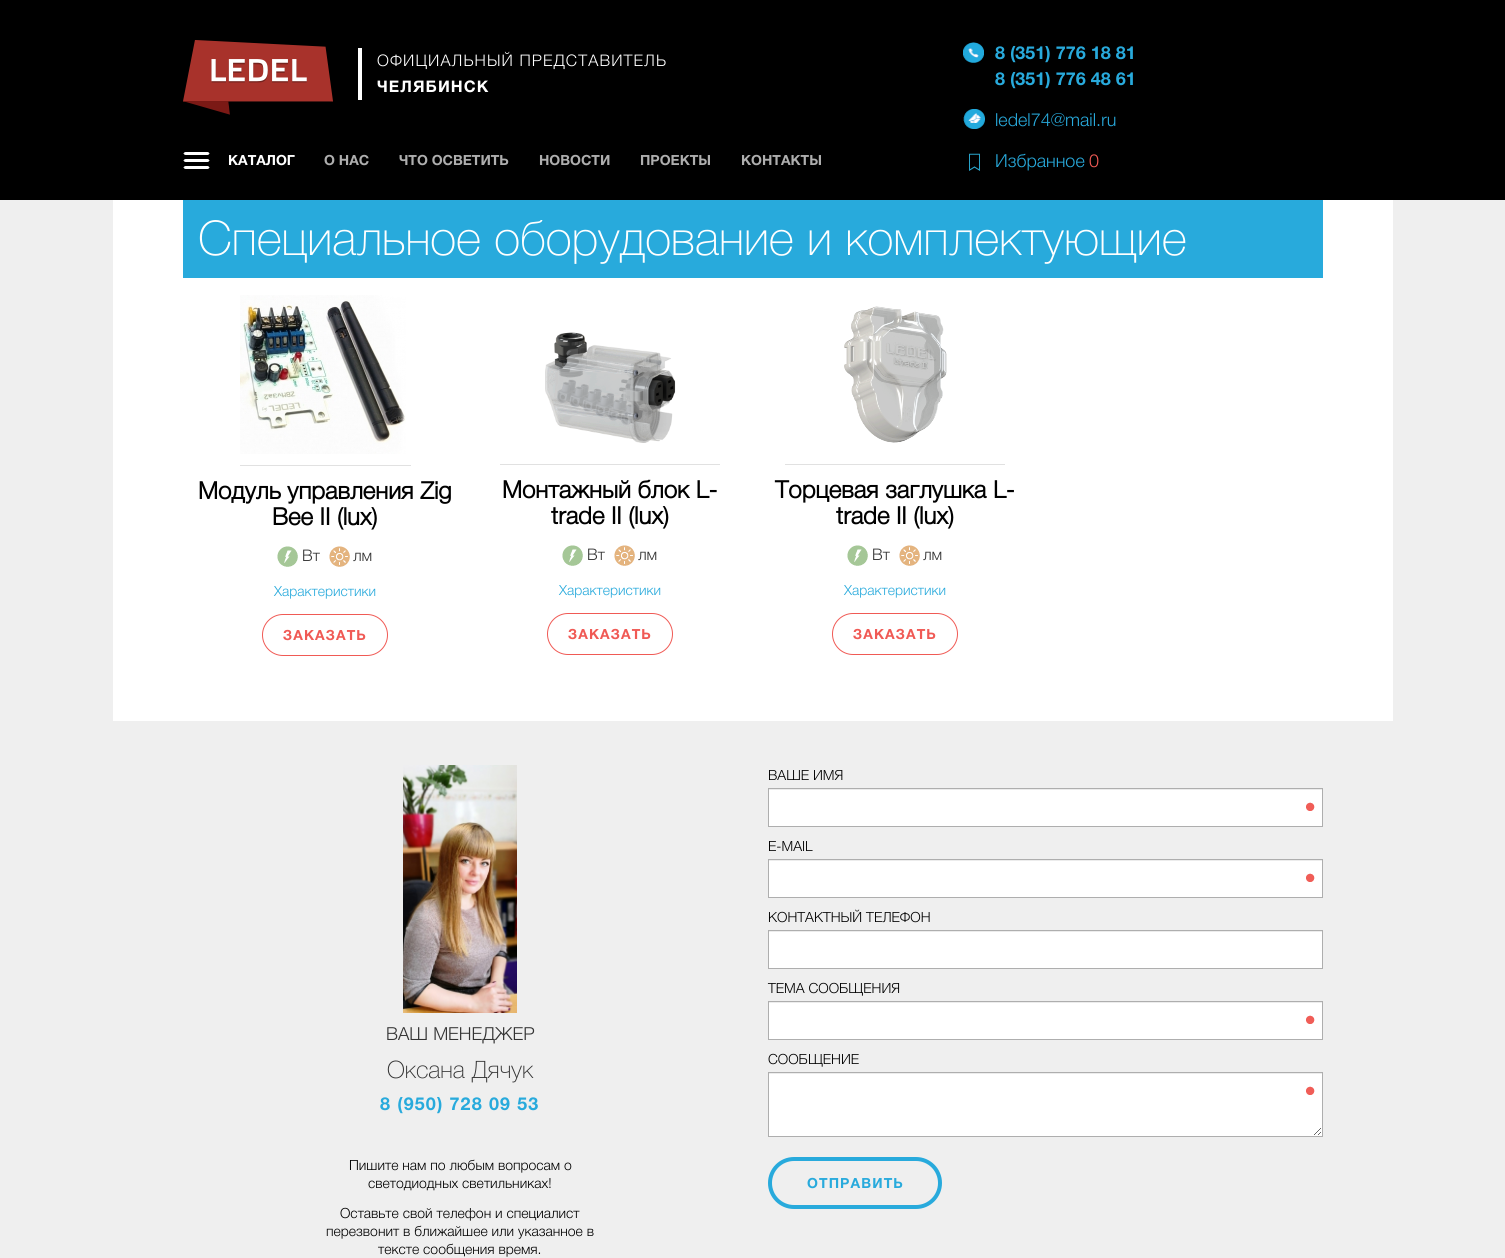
import math
import cairo


def write_spaced(ctx, x, y, s, letter, word):
	ctx.move_to(x, y)
	for ch in s:
		ctx.show_text(ch)
		ctx.rel_move_to(letter + word * (ch == ' '), 0)

def round_path(ctx, x, y, w, h, r):
	ctx.new_sub_path()
	for i, (u, v) in enumerate([(x + w - r, y + h - r), (x + r, y + h - r), (x + r, y + r), (x + w - r, y + r)]):
		ctx.arc(u, v, r, i * math.pi / 2, (i + 1) * math.pi / 2)
	ctx.close_path()

def paste(ctx, path, x, y, w, h):
	ctx.save()
	ctx.set_source_surface(cairo.ImageSurface.create_from_png(path), x, y)
	ctx.rectangle(x, y, w, h)
	ctx.fill()
	ctx.restore()

def draw(ctx):
	ctx.set_source_rgb(0.937, 0.937, 0.937)
	ctx.paint()
	ctx.set_source_rgb(0, 0, 0)
	ctx.rectangle(0, 0, 1505, 200)
	ctx.fill()
	paste(ctx, 'media/1.png', 183, 40, 150, 75)
	ctx.set_source_rgb(1, 1, 1)
	ctx.rectangle(358, 48, 4, 52)
	ctx.fill()
	ctx.select_font_face('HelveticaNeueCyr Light')
	ctx.set_font_size(16)
	write_spaced(ctx, 377, 66, 'ОФИЦИАЛЬНЫЙ ПРЕДСТАВИТЕЛЬ', 1.1, 0)
	ctx.select_font_face('HelveticaNeueCyr', cairo.FONT_SLANT_NORMAL, cairo.FONT_WEIGHT_BOLD)
	write_spaced(ctx, 377, 92, 'ЧЕЛЯБИНСК', 1.1, 0)
	paste(ctx, 'media/2.png', 963, 42, 21, 21)
	ctx.set_font_size(18)
	ctx.set_source_rgb(0.157, 0.667, 0.863)
	ctx.move_to(995, 59)
	ctx.show_text('8 (351) 776 18 81')
	ctx.move_to(995, 85)
	ctx.show_text('8 (351) 776 48 61')
	paste(ctx, 'media/3.png', 963, 109, 22, 20)
	ctx.select_font_face('HelveticaNeueCyr Light')
	ctx.move_to(995, 126)
	ctx.show_text('ledel74@mail.ru')
	paste(ctx, 'media/4.png', 183, 152, 27, 17)
	ctx.select_font_face('HelveticaNeueCyr', cairo.FONT_SLANT_NORMAL, cairo.FONT_WEIGHT_BOLD)
	ctx.set_font_size(14)
	ctx.set_source_rgb(1, 1, 1)
	ctx.move_to(228, 165)
	ctx.show_text('КАТАЛОГ')
	ctx.set_source_rgb(0.682, 0.682, 0.682)
	for x, y, s in [
		(324, 165, 'О НАС'),
		(399, 165, 'ЧТО ОСВЕТИТЬ'),
		(539, 165, 'НОВОСТИ'),
		(640, 165, 'ПРОЕКТЫ'),
		(741, 165, 'КОНТАКТЫ'),
	]:
		ctx.move_to(x, y)
		ctx.show_text(s)
	paste(ctx, 'media/5.png', 969, 153, 11, 18)
	ctx.select_font_face('HelveticaNeueCyr Light')
	ctx.set_font_size(18)
	ctx.set_source_rgb(0.157, 0.667, 0.863)
	ctx.move_to(995, 167)
	ctx.show_text('Избранное')
	ctx.set_source_rgb(0.941, 0.353, 0.333)
	ctx.move_to(1089, 167)
	ctx.show_text('0')
	ctx.set_source_rgb(1, 1, 1)
	ctx.rectangle(113, 200, 1280, 521)
	ctx.fill()
	ctx.set_source_rgb(0.157, 0.667, 0.863)
	ctx.rectangle(183, 200, 1140, 78)
	ctx.fill()
	ctx.select_font_face('HelveticaNeueCyr Thin')
	ctx.set_font_size(48)
	ctx.set_source_rgb(1, 1, 1)
	ctx.move_to(198, 255)
	ctx.show_text('Специальное оборудование и комплектующие')
	ctx.set_source_rgb(0.882, 0.882, 0.882)
	ctx.rectangle(240, 465, 171, 1)
	ctx.fill()
	paste(ctx, 'media/6.png', 240, 295, 166, 159)
	ctx.select_font_face('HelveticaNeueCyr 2', cairo.FONT_SLANT_NORMAL, cairo.FONT_WEIGHT_BOLD)
	ctx.set_font_size(24)
	ctx.set_source_rgb(0, 0, 0)
	ctx.move_to(198, 499)
	ctx.show_text('Модуль управления Zig')
	ctx.move_to(272, 525)
	ctx.show_text('Bee II (lux)')
	paste(ctx, 'media/7.png', 277, 546, 21, 21)
	ctx.select_font_face('HelveticaNeueCyr Light')
	ctx.set_font_size(16)
	ctx.set_source_rgb(0.2, 0.2, 0.2)
	ctx.move_to(302, 561)
	ctx.show_text('Вт')
	paste(ctx, 'media/8.png', 329, 546, 21, 21)
	ctx.move_to(353, 561)
	ctx.show_text('лм')
	ctx.set_font_size(14)
	ctx.set_source_rgb(0.157, 0.667, 0.863)
	ctx.move_to(274, 596)
	ctx.show_text('Характеристики')
	round_path(ctx, 262.5, 614.5, 125, 41, 20.5)
	ctx.set_source_rgb(0.941, 0.353, 0.333)
	ctx.set_line_width(1)
	ctx.stroke()
	ctx.select_font_face('HelveticaNeueCyr', cairo.FONT_SLANT_NORMAL, cairo.FONT_WEIGHT_BOLD)
	write_spaced(ctx, 283, 640, 'ЗАКАЗАТЬ', 1.1, 0)
	ctx.set_source_rgb(0.882, 0.882, 0.882)
	ctx.rectangle(500, 464, 220, 1)
	ctx.fill()
	paste(ctx, 'media/9.png', 545, 332, 131, 111)
	ctx.select_font_face('HelveticaNeueCyr 2', cairo.FONT_SLANT_NORMAL, cairo.FONT_WEIGHT_BOLD)
	ctx.set_font_size(24)
	ctx.set_source_rgb(0, 0, 0)
	ctx.move_to(502, 498)
	ctx.show_text('Монтажный блок L-')
	ctx.move_to(551, 524)
	ctx.show_text('trade II (lux)')
	paste(ctx, 'media/7.png', 562, 545, 21, 21)
	ctx.select_font_face('HelveticaNeueCyr Light')
	ctx.set_font_size(16)
	ctx.set_source_rgb(0.2, 0.2, 0.2)
	ctx.move_to(587, 560)
	ctx.show_text('Вт')
	paste(ctx, 'media/8.png', 614, 545, 21, 21)
	ctx.move_to(638, 560)
	ctx.show_text('лм')
	ctx.set_font_size(14)
	ctx.set_source_rgb(0.157, 0.667, 0.863)
	ctx.move_to(559, 595)
	ctx.show_text('Характеристики')
	round_path(ctx, 547.5, 613.5, 125, 41, 20.5)
	ctx.set_source_rgb(0.941, 0.353, 0.333)
	ctx.stroke()
	ctx.select_font_face('HelveticaNeueCyr', cairo.FONT_SLANT_NORMAL, cairo.FONT_WEIGHT_BOLD)
	write_spaced(ctx, 568, 639, 'ЗАКАЗАТЬ', 1.1, 0)
	ctx.set_source_rgb(0.882, 0.882, 0.882)
	ctx.rectangle(785, 464, 220, 1)
	ctx.fill()
	paste(ctx, 'media/10.png', 844, 306, 103, 137)
	ctx.select_font_face('HelveticaNeueCyr 2', cairo.FONT_SLANT_NORMAL, cairo.FONT_WEIGHT_BOLD)
	ctx.set_font_size(24)
	ctx.set_source_rgb(0, 0, 0)
	ctx.move_to(775, 498)
	ctx.show_text('Торцевая заглушка L-')
	ctx.move_to(836, 524)
	ctx.show_text('trade II (lux)')
	paste(ctx, 'media/7.png', 847, 545, 21, 21)
	ctx.select_font_face('HelveticaNeueCyr Light')
	ctx.set_font_size(16)
	ctx.set_source_rgb(0.2, 0.2, 0.2)
	ctx.move_to(872, 560)
	ctx.show_text('Вт')
	paste(ctx, 'media/8.png', 899, 545, 21, 21)
	ctx.move_to(923, 560)
	ctx.show_text('лм')
	ctx.set_font_size(14)
	ctx.set_source_rgb(0.157, 0.667, 0.863)
	ctx.move_to(844, 595)
	ctx.show_text('Характеристики')
	round_path(ctx, 832.5, 613.5, 125, 41, 20.5)
	ctx.set_source_rgb(0.941, 0.353, 0.333)
	ctx.stroke()
	ctx.select_font_face('HelveticaNeueCyr', cairo.FONT_SLANT_NORMAL, cairo.FONT_WEIGHT_BOLD)
	write_spaced(ctx, 853, 639, 'ЗАКАЗАТЬ', 1.1, 0)
	paste(ctx, 'media/11.png', 403, 765, 114, 248)
	ctx.select_font_face('HelveticaNeueCyr Light')
	ctx.set_font_size(18)
	ctx.set_source_rgb(0.2, 0.2, 0.2)
	ctx.move_to(386, 1040)
	ctx.show_text('ВАШ МЕНЕДЖЕР')
	ctx.select_font_face('HelveticaNeueCyr Thin')
	ctx.set_font_size(24)
	ctx.move_to(387, 1078)
	ctx.show_text('Оксана Дячук')
	ctx.select_font_face('HelveticaNeueCyr', cairo.FONT_SLANT_NORMAL, cairo.FONT_WEIGHT_BOLD)
	ctx.set_font_size(18)
	ctx.set_source_rgb(0.157, 0.667, 0.863)
	write_spaced(ctx, 380, 1110, '8 (950) 728 09 53', 1.1, 0)
	ctx.select_font_face('HelveticaNeueCyr Light')
	ctx.set_font_size(14)
	ctx.set_source_rgb(0, 0, 0)
	for x, y, s in [
		(349, 1170, 'Пишите нам по любым вопросам о'),
		(368, 1188, 'светодиодных светильниках!'),
		(340, 1218, 'Оставьте свой телефон и специалист'),
		(326, 1236, 'перезвонит в ближайшее или указанное в'),
		(378, 1254, 'тексте сообщения время.'),
		(768, 780, 'ВАШЕ ИМЯ'),
	]:
		ctx.move_to(x, y)
		ctx.show_text(s)
	ctx.set_source_rgb(1, 1, 1)
	ctx.rectangle(769, 790, 553, 36)
	ctx.fill()
	paste(ctx, 'media/12.png', 1306, 802, 9, 9)
	ctx.set_source_rgb(0.925, 0.925, 0.925)
	ctx.rectangle(769, 789, 553, 1)
	ctx.fill()
	ctx.rectangle(768.5, 788.5, 554, 38)
	ctx.set_source_rgb(0.682, 0.682, 0.682)
	ctx.stroke()
	ctx.set_source_rgb(0, 0, 0)
	ctx.move_to(768, 851)
	ctx.show_text('E-MAIL')
	ctx.set_source_rgb(1, 1, 1)
	ctx.rectangle(769, 861, 553, 36)
	ctx.fill()
	paste(ctx, 'media/12.png', 1306, 873, 9, 9)
	ctx.set_source_rgb(0.925, 0.925, 0.925)
	ctx.rectangle(769, 860, 553, 1)
	ctx.fill()
	ctx.rectangle(768.5, 859.5, 554, 38)
	ctx.set_source_rgb(0.682, 0.682, 0.682)
	ctx.stroke()
	ctx.set_source_rgb(0, 0, 0)
	ctx.move_to(768, 922)
	ctx.show_text('КОНТАКТНЫЙ ТЕЛЕФОН')
	ctx.set_source_rgb(1, 1, 1)
	ctx.rectangle(769, 932, 553, 36)
	ctx.fill()
	ctx.set_source_rgb(0.925, 0.925, 0.925)
	ctx.rectangle(769, 931, 553, 1)
	ctx.fill()
	ctx.rectangle(768.5, 930.5, 554, 38)
	ctx.set_source_rgb(0.682, 0.682, 0.682)
	ctx.stroke()
	ctx.set_source_rgb(0, 0, 0)
	ctx.move_to(768, 993)
	ctx.show_text('ТЕМА СООБЩЕНИЯ')
	ctx.set_source_rgb(1, 1, 1)
	ctx.rectangle(769, 1003, 553, 36)
	ctx.fill()
	paste(ctx, 'media/12.png', 1306, 1015, 9, 9)
	ctx.set_source_rgb(0.925, 0.925, 0.925)
	ctx.rectangle(769, 1002, 553, 1)
	ctx.fill()
	ctx.rectangle(768.5, 1001.5, 554, 38)
	ctx.set_source_rgb(0.682, 0.682, 0.682)
	ctx.stroke()
	ctx.set_source_rgb(0, 0, 0)
	ctx.move_to(768, 1064)
	ctx.show_text('СООБЩЕНИЕ')
	ctx.set_source_rgb(1, 1, 1)
	ctx.rectangle(769, 1074, 553, 62)
	ctx.fill()
	paste(ctx, 'media/13.png', 1306, 1086, 15, 49)
	ctx.set_source_rgb(0.925, 0.925, 0.925)
	ctx.rectangle(769, 1073, 553, 1)
	ctx.fill()
	ctx.rectangle(768.5, 1072.5, 554, 64)
	ctx.set_source_rgb(0.682, 0.682, 0.682)
	ctx.stroke()
	round_path(ctx, 770, 1159, 170, 48, 24)
	ctx.set_source_rgb(0.157, 0.667, 0.863)
	ctx.set_line_width(4)
	ctx.stroke()
	ctx.select_font_face('HelveticaNeueCyr', cairo.FONT_SLANT_NORMAL, cairo.FONT_WEIGHT_BOLD)
	write_spaced(ctx, 807, 1188, 'ОТПРАВИТЬ', 1.1, 0)


surface = cairo.ImageSurface(cairo.FORMAT_RGB24, 1505, 1258)
ctx = cairo.Context(surface)
options = cairo.FontOptions()
options.set_hint_metrics(cairo.HINT_METRICS_OFF)
options.set_hint_style(cairo.HINT_STYLE_NONE)
ctx.set_font_options(options)
ctx.set_miter_limit(4)
draw(ctx)
surface.write_to_png('image.png')
